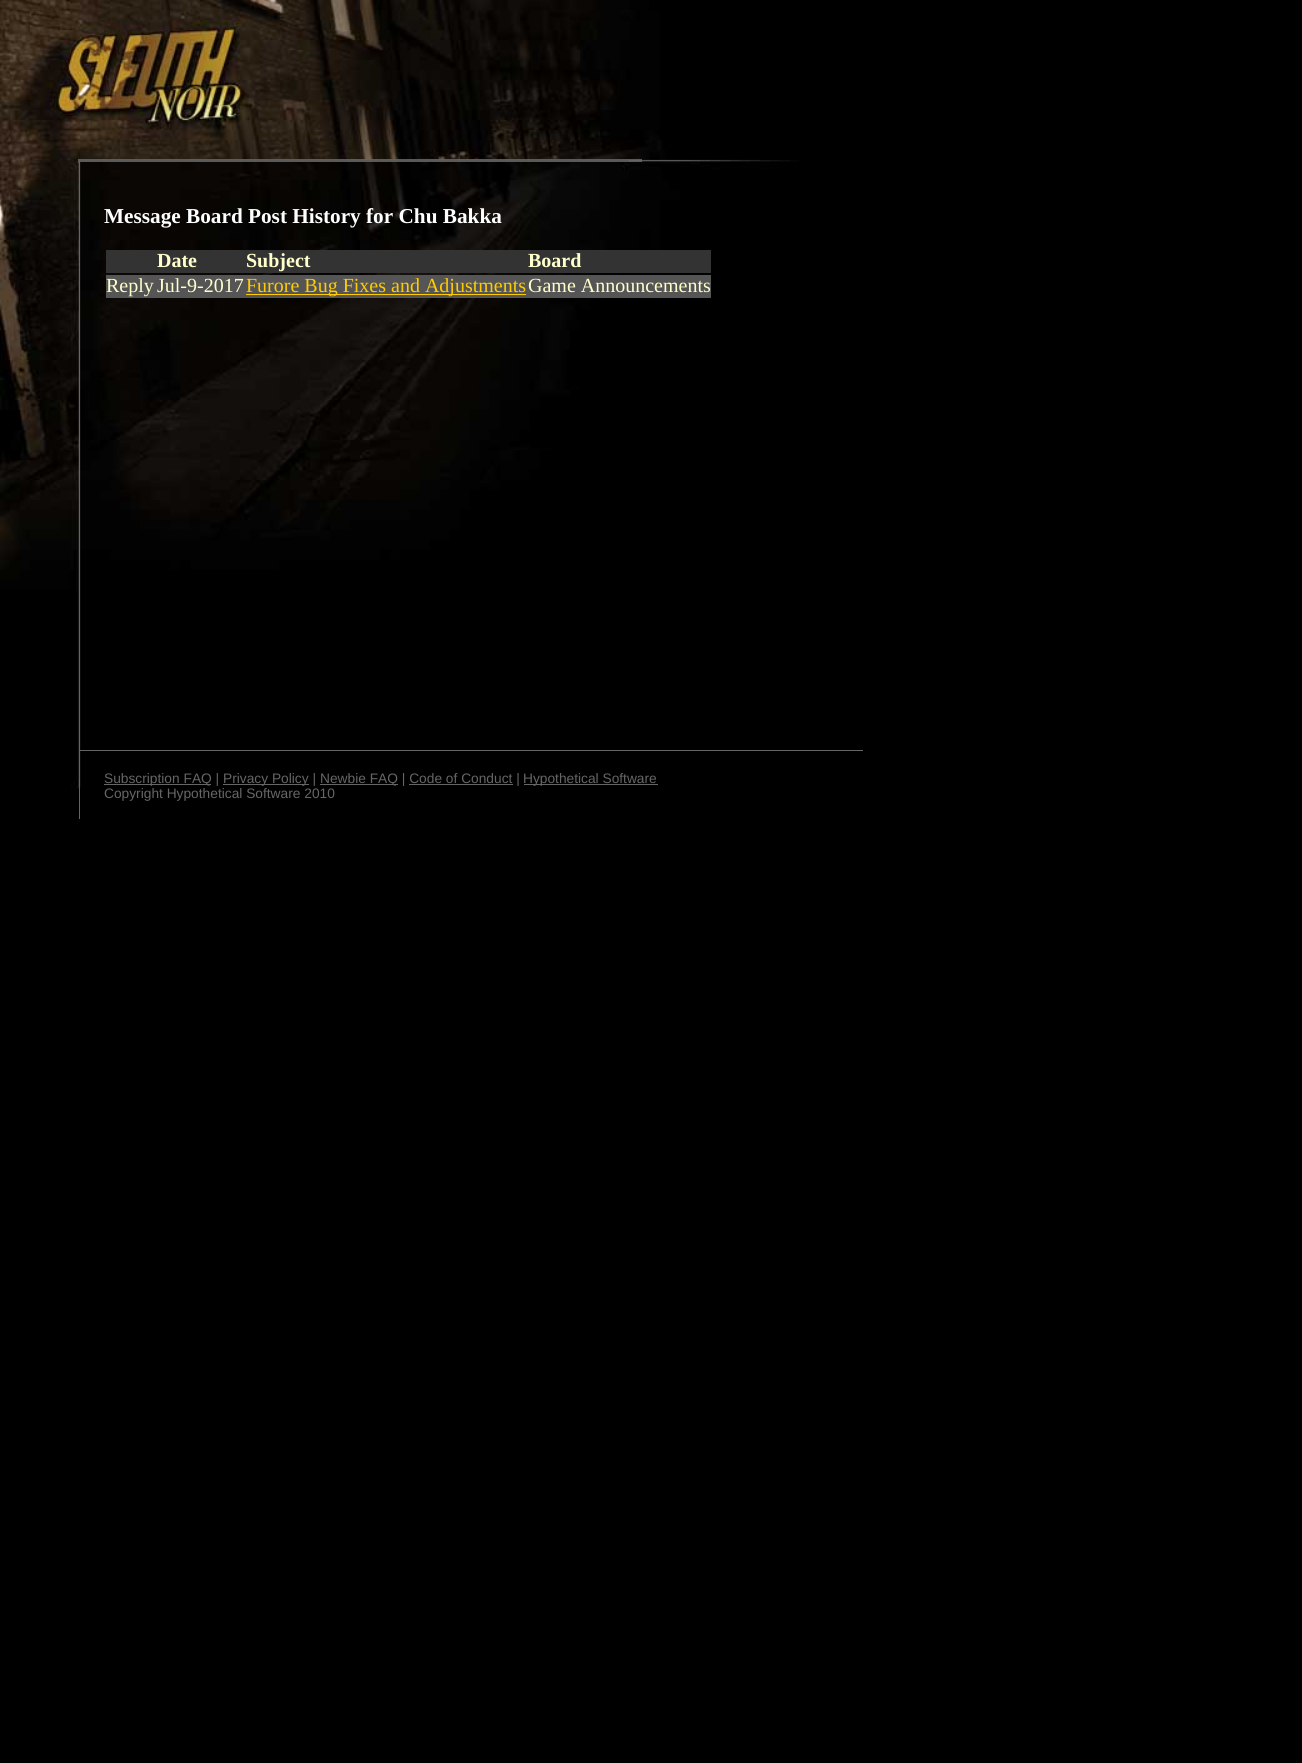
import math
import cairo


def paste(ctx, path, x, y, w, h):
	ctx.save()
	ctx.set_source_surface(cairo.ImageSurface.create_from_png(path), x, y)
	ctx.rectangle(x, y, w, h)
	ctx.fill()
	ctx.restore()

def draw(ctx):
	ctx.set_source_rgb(0, 0, 0)
	ctx.paint()
	paste(ctx, 'media/1.png', 0, 0, 799, 790)
	ctx.set_source_rgb(0.4, 0.4, 0.4)
	ctx.rectangle(79, 161, 1, 589)
	ctx.fill()
	ctx.set_source_rgba(0.4, 0.4, 0.4, 0.87)
	ctx.rectangle(78, 159, 564, 3)
	ctx.fill()
	ctx.select_font_face('Liberation Serif', cairo.FONT_SLANT_NORMAL, cairo.FONT_WEIGHT_BOLD)
	ctx.set_font_size(21.25)
	ctx.set_source_rgb(1, 1, 1)
	ctx.move_to(104, 223)
	ctx.show_text('Message Board Post History for Chu Bakka')
	ctx.set_source_rgb(0.2, 0.2, 0.2)
	ctx.rectangle(106, 250, 605, 23)
	ctx.fill()
	ctx.set_font_size(20)
	ctx.set_source_rgb(1, 1, 0.8)
	for x, y, s in [
		(157, 267, 'Date'),
		(246, 267, 'Subject'),
		(528, 267, 'Board'),
	]:
		ctx.move_to(x, y)
		ctx.show_text(s)
	ctx.set_source_rgb(0.333, 0.333, 0.333)
	ctx.rectangle(106, 275, 605, 23)
	ctx.fill()
	ctx.select_font_face('Liberation Serif')
	ctx.set_source_rgb(1, 1, 0.8)
	ctx.move_to(106, 292)
	ctx.show_text('Reply')
	ctx.move_to(157, 292)
	ctx.show_text('Jul-9-2017')
	ctx.set_source_rgb(1, 0.8, 0)
	ctx.rectangle(246, 294, 280, 1)
	ctx.fill()
	ctx.move_to(246, 292)
	ctx.show_text('Furore Bug Fixes and Adjustments')
	ctx.set_source_rgb(1, 1, 0.8)
	ctx.move_to(528, 292)
	ctx.show_text('Game Announcements')
	ctx.set_source_rgb(0.4, 0.4, 0.4)
	ctx.rectangle(79, 750, 784, 1)
	ctx.rectangle(79, 751, 1, 68)
	ctx.rectangle(104, 784, 107, 1)
	ctx.fill()
	ctx.select_font_face('Liberation Sans')
	ctx.set_font_size(13.75)
	ctx.move_to(104, 783)
	ctx.show_text('Subscription FAQ |')
	ctx.rectangle(223, 784, 86, 1)
	ctx.fill()
	ctx.move_to(223, 783)
	ctx.show_text('Privacy Policy |')
	ctx.rectangle(320, 784, 78, 1)
	ctx.fill()
	ctx.move_to(320, 783)
	ctx.show_text('Newbie FAQ | Code of Conduct |')
	ctx.rectangle(524, 784, 134, 1)
	ctx.fill()
	ctx.move_to(523, 783)
	ctx.show_text('Hypothetical Software')
	ctx.rectangle(409, 784, 104, 1)
	ctx.fill()
	ctx.move_to(104, 798)
	ctx.show_text('Copyright Hypothetical Software 2010')


surface = cairo.ImageSurface(cairo.FORMAT_RGB24, 1302, 1763)
ctx = cairo.Context(surface)
options = cairo.FontOptions()
options.set_hint_metrics(cairo.HINT_METRICS_OFF)
options.set_hint_style(cairo.HINT_STYLE_NONE)
ctx.set_font_options(options)
ctx.set_miter_limit(4)
draw(ctx)
surface.write_to_png('image.png')
